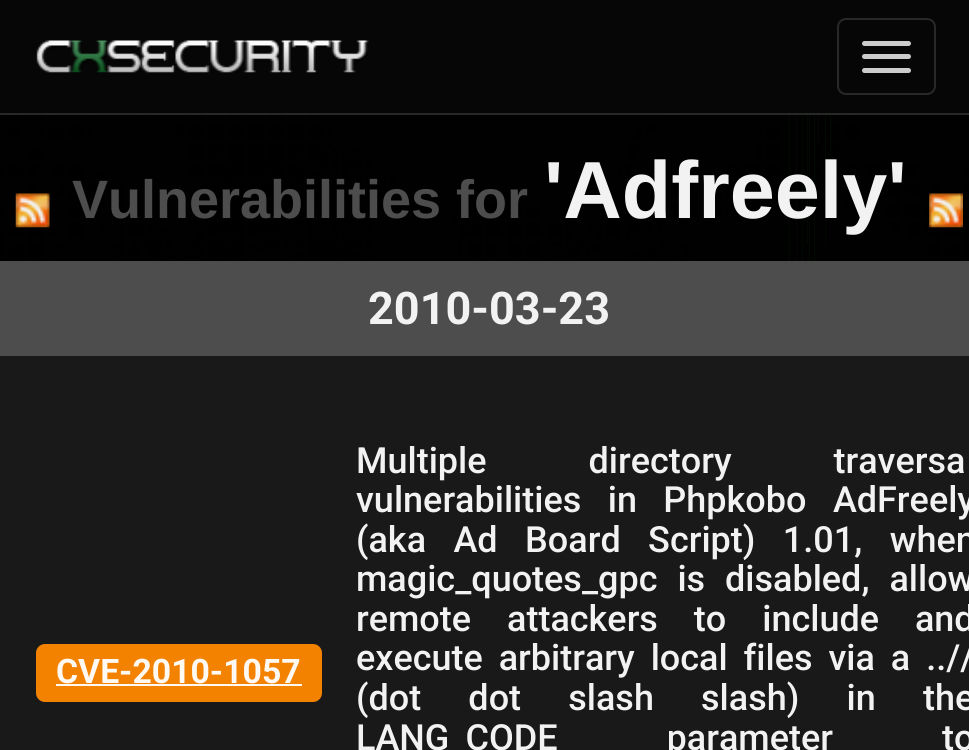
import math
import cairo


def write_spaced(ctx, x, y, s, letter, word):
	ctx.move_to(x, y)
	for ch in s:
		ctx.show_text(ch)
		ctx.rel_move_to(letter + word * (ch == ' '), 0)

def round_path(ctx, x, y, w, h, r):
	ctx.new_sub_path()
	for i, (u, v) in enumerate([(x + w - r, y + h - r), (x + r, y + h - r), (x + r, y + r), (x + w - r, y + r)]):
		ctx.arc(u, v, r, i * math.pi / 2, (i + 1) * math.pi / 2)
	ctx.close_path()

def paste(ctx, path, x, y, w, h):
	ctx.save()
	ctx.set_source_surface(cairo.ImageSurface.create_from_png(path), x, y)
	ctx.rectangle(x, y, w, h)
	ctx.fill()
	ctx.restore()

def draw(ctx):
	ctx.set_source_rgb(1, 1, 1)
	ctx.paint()
	paste(ctx, 'media/1.png', 0, 115, 969, 635)
	ctx.set_source_rgb(0.024, 0.024, 0.024)
	ctx.rectangle(0, 0, 969, 113)
	ctx.fill()
	ctx.set_source_rgb(0.157, 0.157, 0.157)
	ctx.rectangle(0, 113, 969, 2)
	ctx.fill()
	paste(ctx, 'media/2.png', 36, 40, 333, 33)
	round_path(ctx, 838, 19, 97, 75, 8)
	ctx.stroke()
	ctx.set_source_rgb(0.8, 0.8, 0.8)
	round_path(ctx, 862, 41, 49, 5, 2.5)
	ctx.fill()
	round_path(ctx, 862, 54, 49, 5, 2.5)
	ctx.fill()
	round_path(ctx, 862, 68, 49, 5, 2.5)
	ctx.fill()
	ctx.set_source_rgba(0, 0, 0, 0.95)
	ctx.rectangle(0, 115, 969, 635)
	ctx.fill()
	paste(ctx, 'media/3.png', 15, 193, 35, 35)
	ctx.select_font_face('Liberation Sans', cairo.FONT_SLANT_NORMAL, cairo.FONT_WEIGHT_BOLD)
	ctx.set_font_size(54)
	ctx.set_source_rgb(0.298, 0.302, 0.298)
	ctx.move_to(72, 218)
	ctx.show_text('Vulnerabilities for')
	ctx.set_font_size(81)
	ctx.set_source_rgb(0.949, 0.949, 0.949)
	ctx.move_to(544, 218)
	ctx.show_text('\'Adfreely\'')
	paste(ctx, 'media/4.png', 929, 193, 34, 35)
	ctx.set_source_rgba(0.314, 0.318, 0.314, 0.95)
	ctx.rectangle(0, 261, 969, 95)
	ctx.fill()
	ctx.select_font_face('Roboto', cairo.FONT_SLANT_NORMAL, cairo.FONT_WEIGHT_BOLD)
	ctx.set_font_size(45)
	ctx.set_source_rgb(0.949, 0.949, 0.949)
	ctx.move_to(368, 324)
	ctx.show_text('2010-03-23')
	ctx.set_source_rgba(0.106, 0.106, 0.106, 0.95)
	ctx.rectangle(0, 356, 356, 394)
	ctx.fill()
	ctx.set_source_rgb(0.957, 0.51, 0.004)
	round_path(ctx, 36, 644, 286, 58, 9)
	ctx.fill()
	ctx.set_font_size(33.75)
	ctx.set_source_rgb(0.996, 0.976, 0.949)
	ctx.move_to(56, 683)
	ctx.show_text('CVE-2010-1057')
	ctx.rectangle(56, 684, 246, 2)
	ctx.fill()
	ctx.set_source_rgba(0.106, 0.106, 0.106, 0.95)
	ctx.rectangle(356, 356, 613, 394)
	ctx.fill()
	ctx.select_font_face('Roboto Medium')
	ctx.set_font_size(36)
	ctx.set_source_rgb(0.949, 0.949, 0.949)
	write_spaced(ctx, 356, 473, 'Multiple directory traversa', 0, 93)
	write_spaced(ctx, 356, 512, 'vulnerabilities in Phpkobo AdFreely', 0, 17.5)
	write_spaced(ctx, 356, 552, '(aka Ad Board Script) 1.01, when', 0, 18.5)
	write_spaced(ctx, 356, 591, 'magic_quotes_gpc is disabled, allow', 0, 11)
	write_spaced(ctx, 356, 631, 'remote attackers to include and', 0, 27)
	write_spaced(ctx, 356, 670, 'execute arbitrary local files via a ..//', 0, 7)
	write_spaced(ctx, 356, 710, '(dot dot slash slash) in the', 0, 38.25)
	write_spaced(ctx, 356, 750, 'LANG_CODE parameter to', 0, 100)


surface = cairo.ImageSurface(cairo.FORMAT_RGB24, 969, 750)
ctx = cairo.Context(surface)
options = cairo.FontOptions()
options.set_hint_metrics(cairo.HINT_METRICS_OFF)
options.set_hint_style(cairo.HINT_STYLE_NONE)
ctx.set_font_options(options)
ctx.set_miter_limit(4)
draw(ctx)
surface.write_to_png('image.png')
